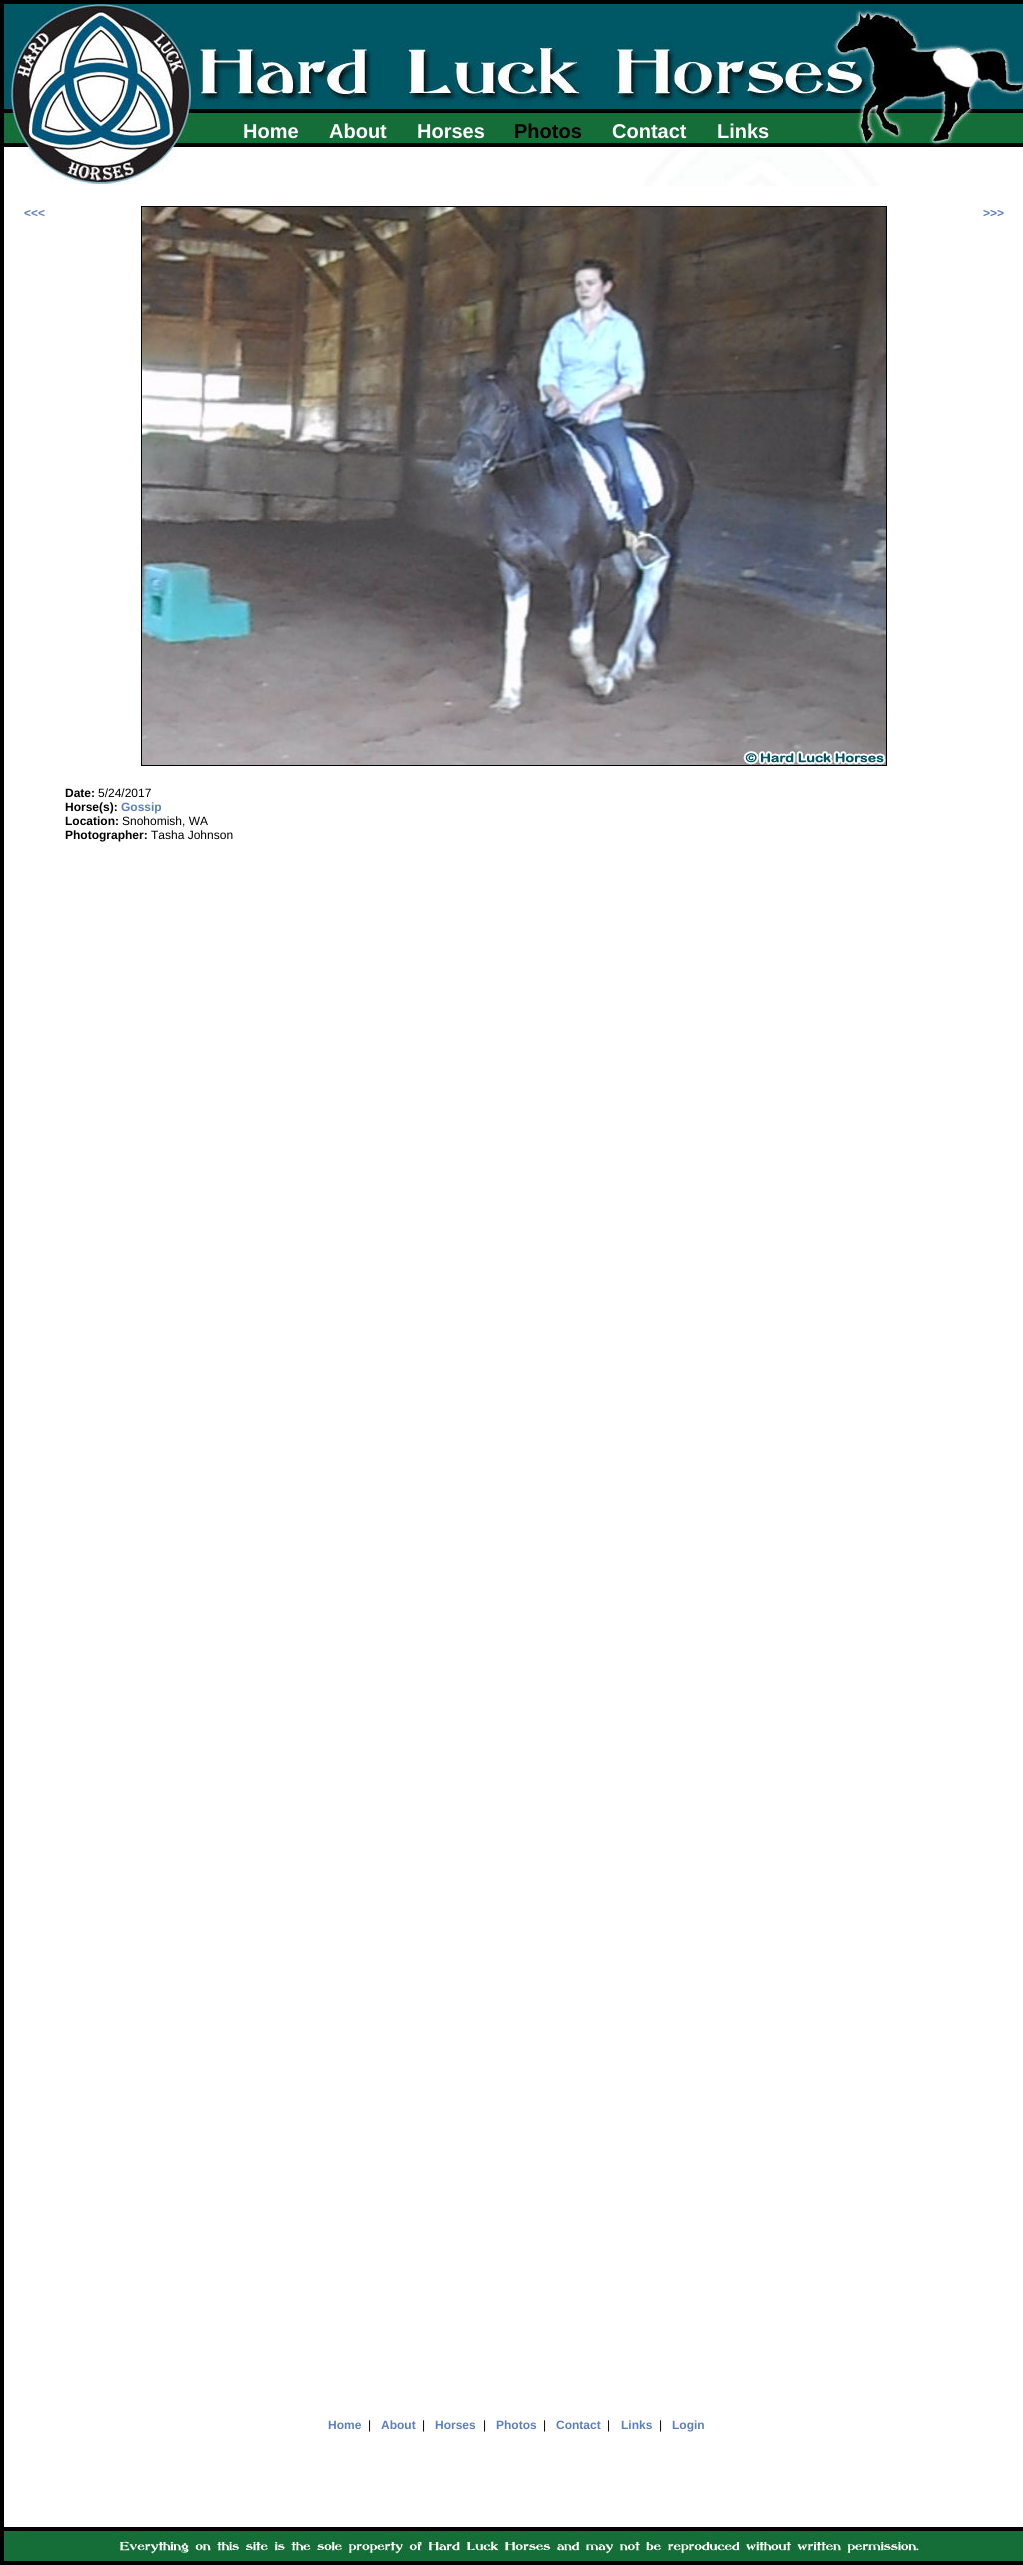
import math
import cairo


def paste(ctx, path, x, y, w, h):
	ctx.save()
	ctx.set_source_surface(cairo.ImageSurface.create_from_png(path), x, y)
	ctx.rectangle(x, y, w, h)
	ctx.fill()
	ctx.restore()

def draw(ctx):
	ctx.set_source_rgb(1, 1, 1)
	ctx.paint()
	ctx.rectangle(2, 2, 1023, 2561)
	ctx.set_source_rgb(0, 0, 0)
	ctx.set_line_width(4)
	ctx.stroke()
	paste(ctx, 'media/1.png', 4, 4, 1019, 182)
	ctx.select_font_face('Liberation Sans', cairo.FONT_SLANT_NORMAL, cairo.FONT_WEIGHT_BOLD)
	ctx.set_font_size(20)
	ctx.set_source_rgb(1, 1, 1)
	for x, y, s in [
		(243, 138, 'Home'),
		(329, 138, 'About'),
		(417, 138, 'Horses'),
	]:
		ctx.move_to(x, y)
		ctx.show_text(s)
	ctx.set_source_rgb(0, 0, 0)
	ctx.move_to(514, 138)
	ctx.show_text('Photos')
	ctx.set_source_rgb(1, 1, 1)
	ctx.move_to(612, 138)
	ctx.show_text('Contact')
	ctx.move_to(717, 138)
	ctx.show_text('Links')
	ctx.set_font_size(12)
	ctx.set_source_rgb(0.357, 0.498, 0.741)
	ctx.move_to(24, 217)
	ctx.show_text('<<<')
	ctx.rectangle(141.5, 206.5, 745, 559)
	ctx.set_source_rgb(0, 0, 0)
	ctx.set_line_width(1)
	ctx.stroke()
	paste(ctx, 'media/2.png', 142, 207, 744, 558)
	ctx.set_source_rgb(0.357, 0.498, 0.741)
	ctx.move_to(983, 217)
	ctx.show_text('>>>')
	ctx.set_source_rgb(0, 0, 0)
	ctx.move_to(65, 797)
	ctx.show_text('Date:')
	ctx.select_font_face('Liberation Sans')
	ctx.move_to(98, 797)
	ctx.show_text('5/24/2017')
	ctx.select_font_face('Liberation Sans', cairo.FONT_SLANT_NORMAL, cairo.FONT_WEIGHT_BOLD)
	ctx.move_to(65, 811)
	ctx.show_text('Horse(s):')
	ctx.set_source_rgb(0.357, 0.498, 0.741)
	ctx.move_to(121, 811)
	ctx.show_text('Gossip')
	ctx.set_source_rgb(0, 0, 0)
	ctx.move_to(65, 825)
	ctx.show_text('Location:')
	ctx.select_font_face('Liberation Sans')
	ctx.move_to(122, 825)
	ctx.show_text('Snohomish, WA')
	ctx.select_font_face('Liberation Sans', cairo.FONT_SLANT_NORMAL, cairo.FONT_WEIGHT_BOLD)
	ctx.move_to(65, 839)
	ctx.show_text('Photographer:')
	ctx.select_font_face('Liberation Sans')
	ctx.move_to(151, 839)
	ctx.show_text('Tasha Johnson')
	ctx.select_font_face('Liberation Sans', cairo.FONT_SLANT_NORMAL, cairo.FONT_WEIGHT_BOLD)
	ctx.set_source_rgb(0.357, 0.498, 0.741)
	ctx.move_to(328, 2429)
	ctx.show_text('Home')
	ctx.select_font_face('Liberation Sans')
	ctx.set_source_rgb(0, 0, 0)
	ctx.move_to(368, 2429)
	ctx.show_text('|')
	ctx.select_font_face('Liberation Sans', cairo.FONT_SLANT_NORMAL, cairo.FONT_WEIGHT_BOLD)
	ctx.set_source_rgb(0.357, 0.498, 0.741)
	ctx.move_to(381, 2429)
	ctx.show_text('About')
	ctx.select_font_face('Liberation Sans')
	ctx.set_source_rgb(0, 0, 0)
	ctx.move_to(422, 2429)
	ctx.show_text('|')
	ctx.select_font_face('Liberation Sans', cairo.FONT_SLANT_NORMAL, cairo.FONT_WEIGHT_BOLD)
	ctx.set_source_rgb(0.357, 0.498, 0.741)
	ctx.move_to(435, 2429)
	ctx.show_text('Horses')
	ctx.select_font_face('Liberation Sans')
	ctx.set_source_rgb(0, 0, 0)
	ctx.move_to(483, 2429)
	ctx.show_text('|')
	ctx.select_font_face('Liberation Sans', cairo.FONT_SLANT_NORMAL, cairo.FONT_WEIGHT_BOLD)
	ctx.set_source_rgb(0.357, 0.498, 0.741)
	ctx.move_to(496, 2429)
	ctx.show_text('Photos')
	ctx.select_font_face('Liberation Sans')
	ctx.set_source_rgb(0, 0, 0)
	ctx.move_to(543, 2429)
	ctx.show_text('|')
	ctx.select_font_face('Liberation Sans', cairo.FONT_SLANT_NORMAL, cairo.FONT_WEIGHT_BOLD)
	ctx.set_source_rgb(0.357, 0.498, 0.741)
	ctx.move_to(556, 2429)
	ctx.show_text('Contact')
	ctx.select_font_face('Liberation Sans')
	ctx.set_source_rgb(0, 0, 0)
	ctx.move_to(607, 2429)
	ctx.show_text('|')
	ctx.select_font_face('Liberation Sans', cairo.FONT_SLANT_NORMAL, cairo.FONT_WEIGHT_BOLD)
	ctx.set_source_rgb(0.357, 0.498, 0.741)
	ctx.move_to(621, 2429)
	ctx.show_text('Links')
	ctx.select_font_face('Liberation Sans')
	ctx.set_source_rgb(0, 0, 0)
	ctx.move_to(659, 2429)
	ctx.show_text('|')
	ctx.select_font_face('Liberation Sans', cairo.FONT_SLANT_NORMAL, cairo.FONT_WEIGHT_BOLD)
	ctx.set_source_rgb(0.357, 0.498, 0.741)
	ctx.move_to(672, 2429)
	ctx.show_text('Login')
	paste(ctx, 'media/3.png', 4, 2527, 1019, 34)


surface = cairo.ImageSurface(cairo.FORMAT_RGB24, 1023, 2565)
ctx = cairo.Context(surface)
options = cairo.FontOptions()
options.set_hint_metrics(cairo.HINT_METRICS_OFF)
options.set_hint_style(cairo.HINT_STYLE_NONE)
ctx.set_font_options(options)
ctx.set_miter_limit(4)
draw(ctx)
surface.write_to_png('image.png')
